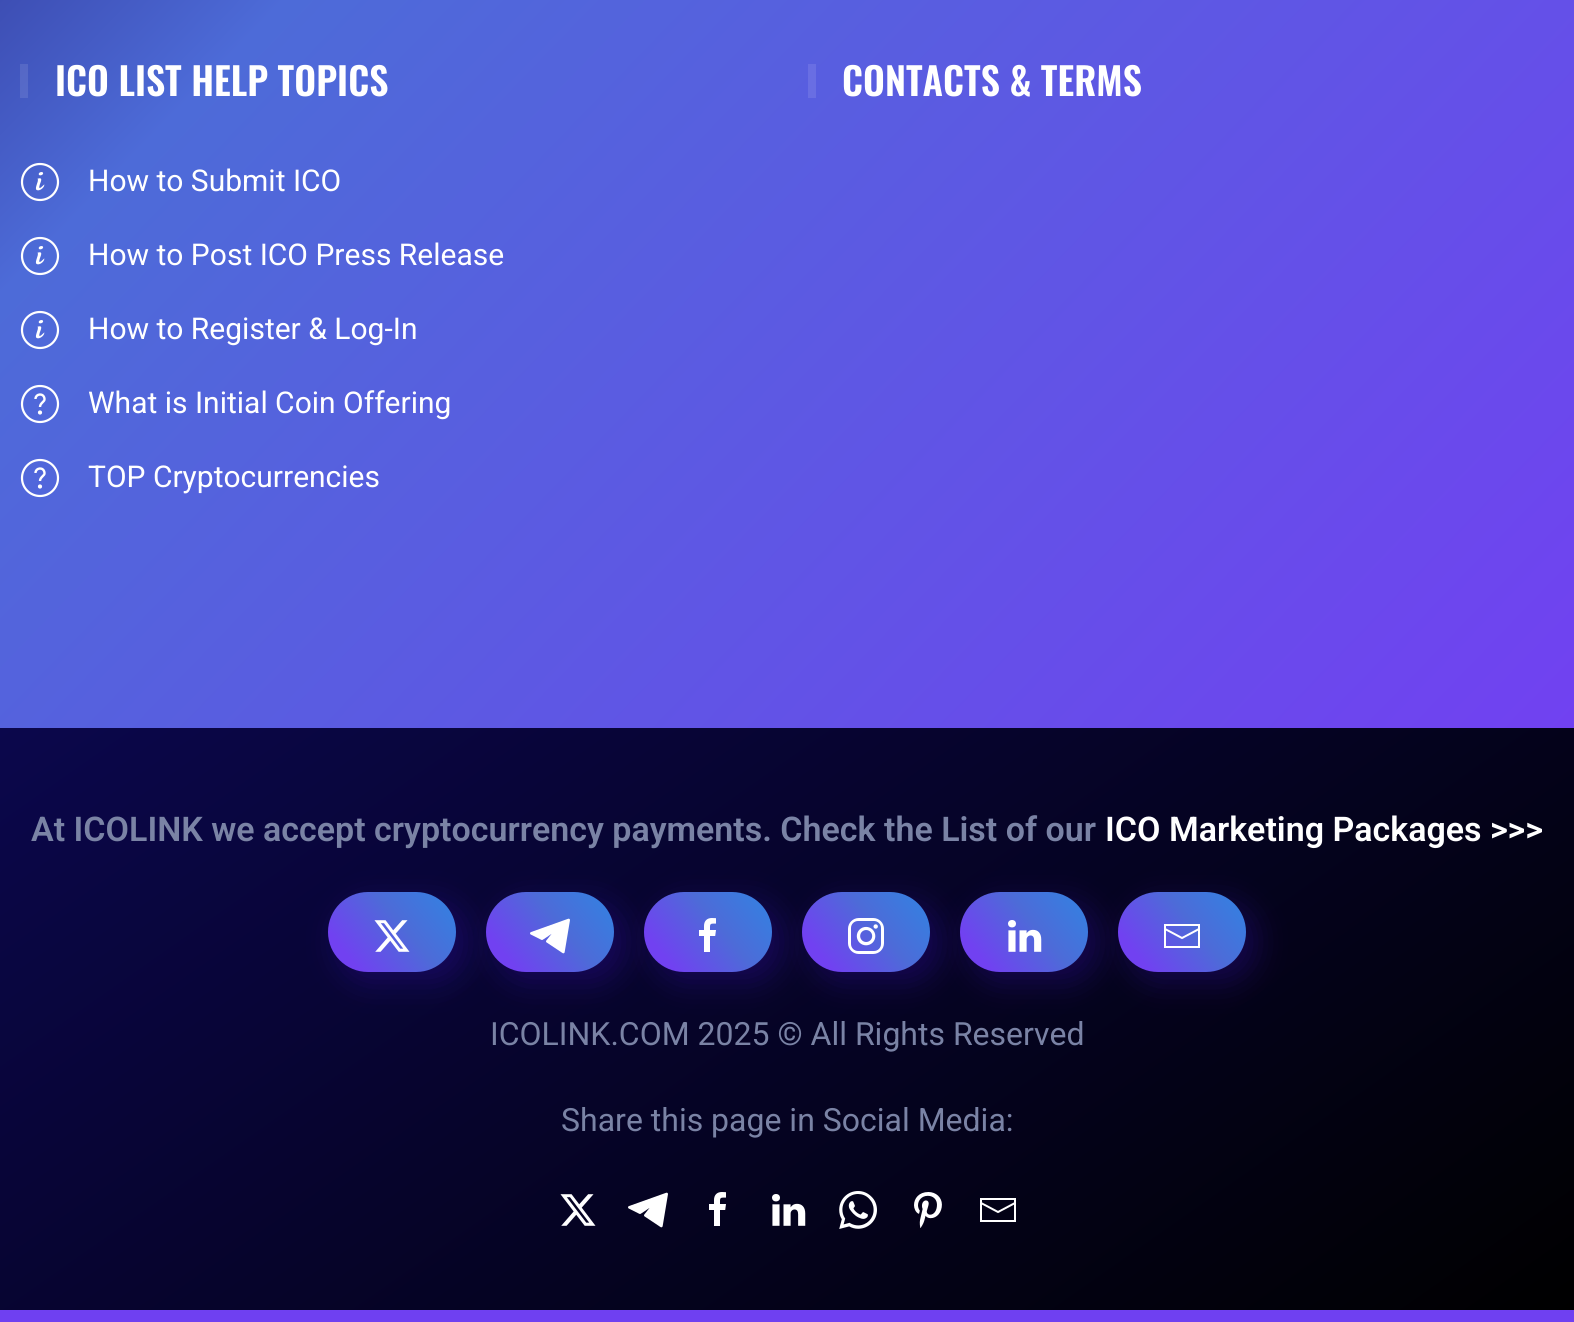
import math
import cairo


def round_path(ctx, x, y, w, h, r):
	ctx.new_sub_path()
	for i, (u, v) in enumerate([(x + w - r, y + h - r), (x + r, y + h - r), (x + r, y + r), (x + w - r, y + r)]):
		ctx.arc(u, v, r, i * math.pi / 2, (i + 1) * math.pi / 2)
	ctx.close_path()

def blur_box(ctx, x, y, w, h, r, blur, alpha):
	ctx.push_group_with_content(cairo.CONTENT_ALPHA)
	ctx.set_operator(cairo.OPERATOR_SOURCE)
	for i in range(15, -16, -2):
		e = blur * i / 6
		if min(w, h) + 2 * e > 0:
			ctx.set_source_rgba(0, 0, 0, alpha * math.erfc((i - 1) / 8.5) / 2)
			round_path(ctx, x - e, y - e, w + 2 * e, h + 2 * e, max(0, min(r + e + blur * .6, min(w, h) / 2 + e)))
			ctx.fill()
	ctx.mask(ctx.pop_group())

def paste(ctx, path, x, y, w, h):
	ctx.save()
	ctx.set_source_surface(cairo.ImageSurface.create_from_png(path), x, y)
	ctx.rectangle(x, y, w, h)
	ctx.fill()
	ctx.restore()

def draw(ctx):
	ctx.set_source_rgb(0.435, 0.251, 0.945)
	ctx.paint()
	gradient = cairo.LinearGradient(1523, 781, 51, -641)
	gradient.add_color_stop_rgba(0, 0.443, 0.255, 0.945, 1)
	gradient.add_color_stop_rgba(0.7, 0.302, 0.42, 0.847, 1)
	gradient.add_color_stop_rgba(1, 0.118, 0.082, 0.424, 1)
	ctx.set_source(gradient)
	ctx.rectangle(0, 0, 1574, 728)
	ctx.fill()
	gradient = cairo.LinearGradient(1523, 781, 51, -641)
	gradient.add_color_stop_rgba(0, 0.498, 0.329, 0.949, 1)
	gradient.add_color_stop_rgba(0.7, 0.373, 0.478, 0.863, 1)
	gradient.add_color_stop_rgba(1, 0.208, 0.173, 0.482, 1)
	ctx.set_source(gradient)
	ctx.rectangle(20, 64, 8, 34)
	ctx.fill()
	ctx.select_font_face('Oswald SemiBold')
	ctx.set_font_size(38)
	ctx.set_source_rgb(1, 1, 1)
	ctx.move_to(55, 96)
	ctx.show_text('ICO LIST HELP TOPICS')
	paste(ctx, 'media/1.png', 20, 162, 40, 40)
	ctx.select_font_face('Roboto')
	ctx.set_font_size(30)
	ctx.move_to(88, 191)
	ctx.show_text('How to Submit ICO')
	paste(ctx, 'media/2.png', 20, 236, 40, 40)
	ctx.move_to(88, 265)
	ctx.show_text('How to Post ICO Press Release')
	paste(ctx, 'media/3.png', 20, 310, 40, 40)
	ctx.move_to(88, 339)
	ctx.show_text('How to Register & Log-In')
	ctx.new_path()
	ctx.arc(40, 404, 18, 0, 2 * math.pi)
	ctx.set_line_width(2.2)
	ctx.stroke()
	ctx.new_path()
	ctx.move_to(35.5, 399)
	ctx.curve_to(35.5, 393.5, 44, 392.5, 44.5, 399)
	ctx.curve_to(45, 401.5, 40, 403, 40, 407)
	ctx.set_line_width(2.4)
	ctx.stroke()
	ctx.arc(40, 412.5, 2.1, 0, 2 * math.pi)
	ctx.fill()
	ctx.move_to(88, 413)
	ctx.show_text('What is Initial Coin Offering')
	ctx.new_path()
	ctx.arc(40, 478, 18, 0, 2 * math.pi)
	ctx.set_line_width(2.2)
	ctx.stroke()
	ctx.new_path()
	ctx.move_to(35.5, 473)
	ctx.curve_to(35.5, 467.5, 44, 466.5, 44.5, 473)
	ctx.curve_to(45, 475.5, 40, 477, 40, 481)
	ctx.set_line_width(2.4)
	ctx.stroke()
	ctx.arc(40, 486.5, 2.1, 0, 2 * math.pi)
	ctx.fill()
	ctx.move_to(88, 487)
	ctx.show_text('TOP Cryptocurrencies')
	ctx.set_source_rgb(0.412, 0.431, 0.89)
	ctx.rectangle(808, 64, 8, 34)
	ctx.fill()
	ctx.select_font_face('Oswald SemiBold')
	ctx.set_font_size(38)
	ctx.set_source_rgb(1, 1, 1)
	ctx.move_to(842, 96)
	ctx.show_text('CONTACTS & TERMS')
	gradient = cairo.LinearGradient(1183, 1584, 391, 454)
	gradient.add_color_stop_rgba(0, 0, 0, 0, 1)
	gradient.add_color_stop_rgba(1, 0.043, 0.027, 0.298, 1)
	ctx.set_source(gradient)
	ctx.rectangle(0, 728, 1574, 582)
	ctx.fill()
	ctx.select_font_face('Roboto SemiBold')
	ctx.set_font_size(34)
	ctx.set_source_rgb(0.478, 0.514, 0.647)
	ctx.move_to(31, 841)
	ctx.show_text('At ICOLINK we accept cryptocurrency payments. Check the List of our')
	ctx.set_source_rgb(1, 1, 1)
	ctx.move_to(1105, 841)
	ctx.show_text('ICO Marketing Packages >>>')
	ctx.set_source_rgb(0.235, 0.055, 0.741)
	blur_box(ctx, 338, 902, 128, 80, 40, 15, 0.3)
	gradient = cairo.LinearGradient(231, 1010, 425, 854)
	gradient.add_color_stop_rgba(0.5, 0.443, 0.255, 0.945, 1)
	gradient.add_color_stop_rgba(0.75, 0.302, 0.42, 0.847, 1)
	gradient.add_color_stop_rgba(1, 0.192, 0.514, 0.886, 1)
	ctx.set_source(gradient)
	round_path(ctx, 328, 892, 128, 80, 40)
	ctx.fill()
	paste(ctx, 'media/4.png', 374, 920, 36, 32)
	ctx.set_source_rgb(0.235, 0.055, 0.741)
	blur_box(ctx, 496, 902, 128, 80, 40, 15, 0.3)
	gradient = cairo.LinearGradient(389, 1010, 583, 854)
	gradient.add_color_stop_rgba(0.5, 0.443, 0.255, 0.945, 1)
	gradient.add_color_stop_rgba(0.75, 0.302, 0.42, 0.847, 1)
	gradient.add_color_stop_rgba(1, 0.192, 0.514, 0.886, 1)
	ctx.set_source(gradient)
	round_path(ctx, 486, 892, 128, 80, 40)
	ctx.fill()
	paste(ctx, 'media/5.png', 530, 918, 40, 36)
	ctx.set_source_rgb(0.235, 0.055, 0.741)
	blur_box(ctx, 654, 902, 128, 80, 40, 15, 0.3)
	gradient = cairo.LinearGradient(547, 1010, 741, 854)
	gradient.add_color_stop_rgba(0.5, 0.443, 0.255, 0.945, 1)
	gradient.add_color_stop_rgba(0.75, 0.302, 0.42, 0.847, 1)
	gradient.add_color_stop_rgba(1, 0.192, 0.514, 0.886, 1)
	ctx.set_source(gradient)
	round_path(ctx, 644, 892, 128, 80, 40)
	ctx.fill()
	paste(ctx, 'media/6.png', 699, 918, 17, 34)
	ctx.set_source_rgb(0.235, 0.055, 0.741)
	blur_box(ctx, 812, 902, 128, 80, 40, 15, 0.3)
	gradient = cairo.LinearGradient(705, 1010, 899, 854)
	gradient.add_color_stop_rgba(0.5, 0.443, 0.255, 0.945, 1)
	gradient.add_color_stop_rgba(0.75, 0.302, 0.42, 0.847, 1)
	gradient.add_color_stop_rgba(1, 0.192, 0.514, 0.886, 1)
	ctx.set_source(gradient)
	round_path(ctx, 802, 892, 128, 80, 40)
	ctx.fill()
	paste(ctx, 'media/7.png', 848, 918, 36, 36)
	ctx.set_source_rgb(0.235, 0.055, 0.741)
	blur_box(ctx, 970, 902, 128, 80, 40, 15, 0.3)
	gradient = cairo.LinearGradient(863, 1010, 1057, 854)
	gradient.add_color_stop_rgba(0.5, 0.443, 0.255, 0.945, 1)
	gradient.add_color_stop_rgba(0.75, 0.302, 0.42, 0.847, 1)
	gradient.add_color_stop_rgba(1, 0.192, 0.514, 0.886, 1)
	ctx.set_source(gradient)
	round_path(ctx, 960, 892, 128, 80, 40)
	ctx.fill()
	paste(ctx, 'media/8.png', 1008, 920, 34, 32)
	ctx.set_source_rgb(0.235, 0.055, 0.741)
	blur_box(ctx, 1128, 902, 128, 80, 40, 15, 0.3)
	gradient = cairo.LinearGradient(1021, 1010, 1215, 854)
	gradient.add_color_stop_rgba(0.5, 0.443, 0.255, 0.945, 1)
	gradient.add_color_stop_rgba(0.75, 0.302, 0.42, 0.847, 1)
	gradient.add_color_stop_rgba(1, 0.192, 0.514, 0.886, 1)
	ctx.set_source(gradient)
	round_path(ctx, 1118, 892, 128, 80, 40)
	ctx.fill()
	ctx.new_path()
	ctx.move_to(1165, 929)
	ctx.line_to(1182, 938)
	ctx.line_to(1199, 929)
	ctx.set_source_rgb(1, 1, 1)
	ctx.set_line_width(2)
	ctx.stroke()
	ctx.new_path()
	ctx.move_to(1164, 924)
	ctx.line_to(1164, 948)
	ctx.line_to(1200, 948)
	ctx.line_to(1200, 924)
	ctx.close_path()
	ctx.move_to(1198, 946)
	ctx.line_to(1166, 946)
	ctx.line_to(1166, 926)
	ctx.line_to(1198, 926)
	ctx.close_path()
	ctx.fill()
	ctx.select_font_face('Roboto')
	ctx.set_font_size(32)
	ctx.set_source_rgb(0.478, 0.514, 0.647)
	ctx.move_to(490, 1045)
	ctx.show_text('ICOLINK.COM 2025 © All Rights Reserved')
	ctx.move_to(561, 1131)
	ctx.show_text('Share this page in Social Media:')
	paste(ctx, 'media/9.png', 560, 1194, 36, 32)
	paste(ctx, 'media/10.png', 628, 1192, 40, 36)
	paste(ctx, 'media/11.png', 709, 1192, 17, 34)
	paste(ctx, 'media/12.png', 772, 1194, 34, 32)
	paste(ctx, 'media/13.png', 839, 1191, 38, 38)
	paste(ctx, 'media/14.png', 914, 1192, 28, 36)
	ctx.new_path()
	ctx.move_to(981, 1203)
	ctx.line_to(998, 1212)
	ctx.line_to(1015, 1203)
	ctx.set_source_rgb(1, 1, 1)
	ctx.stroke()
	ctx.new_path()
	ctx.move_to(980, 1198)
	ctx.line_to(980, 1222)
	ctx.line_to(1016, 1222)
	ctx.line_to(1016, 1198)
	ctx.close_path()
	ctx.move_to(1014, 1220)
	ctx.line_to(982, 1220)
	ctx.line_to(982, 1200)
	ctx.line_to(1014, 1200)
	ctx.close_path()
	ctx.fill()


surface = cairo.ImageSurface(cairo.FORMAT_RGB24, 1574, 1322)
ctx = cairo.Context(surface)
options = cairo.FontOptions()
options.set_hint_metrics(cairo.HINT_METRICS_OFF)
options.set_hint_style(cairo.HINT_STYLE_NONE)
ctx.set_font_options(options)
ctx.set_miter_limit(4)
draw(ctx)
surface.write_to_png('image.png')
